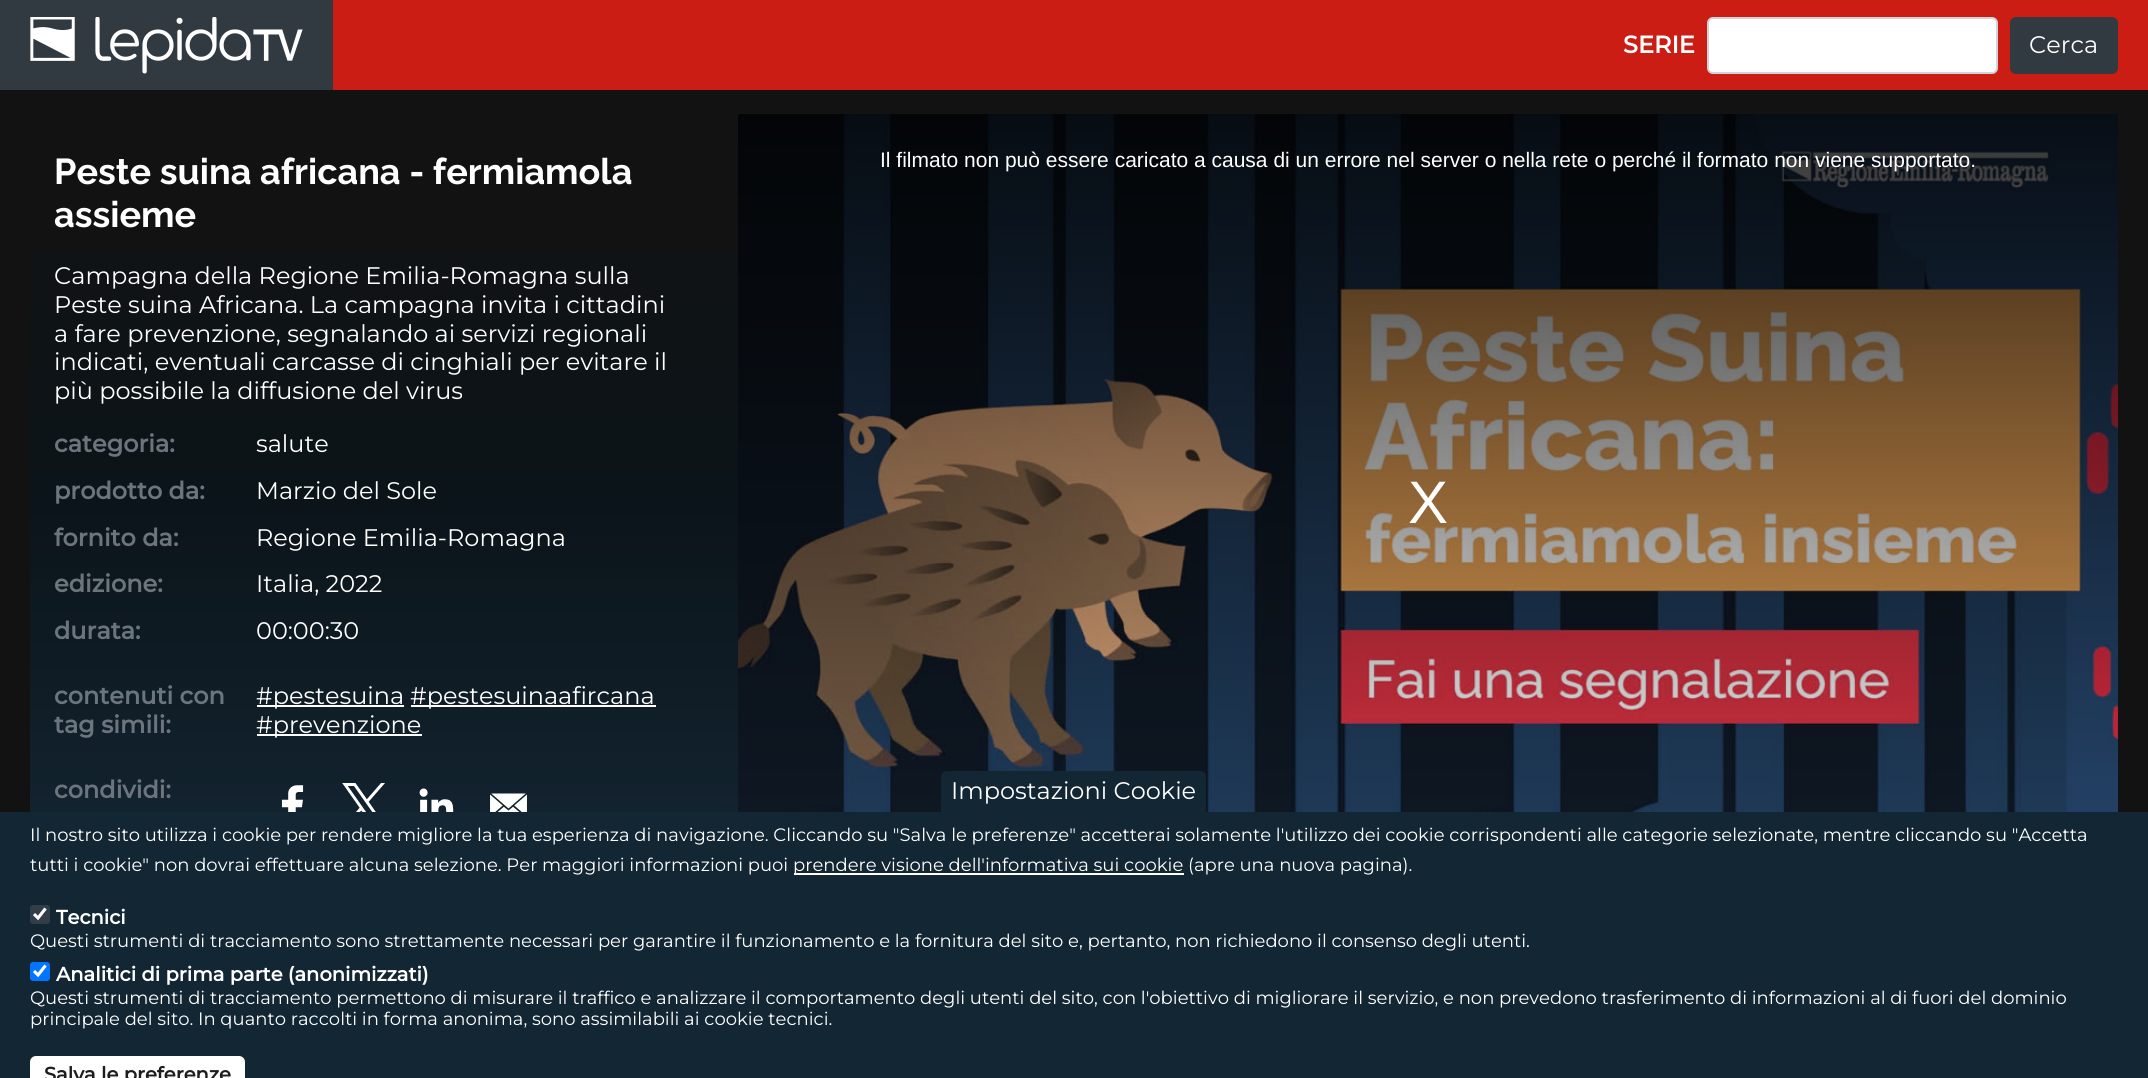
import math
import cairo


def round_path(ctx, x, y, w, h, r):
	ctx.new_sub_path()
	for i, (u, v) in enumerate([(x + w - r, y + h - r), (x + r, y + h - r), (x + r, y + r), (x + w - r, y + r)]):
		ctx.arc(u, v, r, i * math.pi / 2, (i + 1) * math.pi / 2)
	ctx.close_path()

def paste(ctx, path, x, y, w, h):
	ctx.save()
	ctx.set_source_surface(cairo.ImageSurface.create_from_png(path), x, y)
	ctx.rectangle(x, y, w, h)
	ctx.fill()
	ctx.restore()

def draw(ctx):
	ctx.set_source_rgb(0.071, 0.071, 0.071)
	ctx.paint()
	ctx.set_source_rgb(0.796, 0.114, 0.082)
	ctx.rectangle(333, 0, 1815, 90)
	ctx.fill()
	ctx.set_source_rgb(0.192, 0.227, 0.251)
	ctx.rectangle(0, 0, 333, 90)
	ctx.fill()
	paste(ctx, 'media/1.png', 30, 17, 273, 57)
	ctx.select_font_face('Montserrat', cairo.FONT_SLANT_NORMAL, cairo.FONT_WEIGHT_BOLD)
	ctx.set_font_size(24)
	ctx.set_source_rgb(1, 1, 1)
	ctx.move_to(1623, 53)
	ctx.show_text('SERIE')
	round_path(ctx, 1708, 18, 289, 55, 5)
	ctx.fill_preserve()
	ctx.set_source_rgb(0.808, 0.831, 0.855)
	ctx.stroke()
	ctx.set_source_rgb(0.192, 0.227, 0.251)
	round_path(ctx, 2011, 18, 106, 55, 5)
	ctx.fill_preserve()
	ctx.stroke()
	ctx.select_font_face('Montserrat Thin')
	ctx.set_source_rgb(1, 1, 1)
	ctx.move_to(2029, 53)
	ctx.show_text('Cerca')
	gradient = cairo.LinearGradient(1074, 114, 1074, 891)
	gradient.add_color_stop_rgba(0, 0.071, 0.071, 0.071, 1)
	gradient.add_color_stop_rgba(0.5, 0.043, 0.078, 0.098, 1)
	gradient.add_color_stop_rgba(1, 0.078, 0.149, 0.204, 1)
	ctx.set_source(gradient)
	ctx.rectangle(30, 253, 708, 559)
	ctx.fill()
	ctx.select_font_face('Raleway Thin')
	ctx.set_font_size(36)
	ctx.set_source_rgb(1, 1, 1)
	ctx.move_to(54, 184)
	ctx.show_text('Peste suina africana - fermiamola')
	ctx.move_to(54, 227)
	ctx.show_text('assieme')
	ctx.select_font_face('Montserrat Thin')
	ctx.set_font_size(24)
	for x, y, s in [
		(54, 284, 'Campagna della Regione Emilia-Romagna sulla'),
		(54, 313, 'Peste suina Africana. La campagna invita i cittadini'),
		(54, 342, 'a fare prevenzione, segnalando ai servizi regionali'),
		(54, 370, 'indicati, eventuali carcasse di cinghiali per evitare il'),
		(54, 399, 'più possibile la diffusione del virus'),
	]:
		ctx.move_to(x, y)
		ctx.show_text(s)
	ctx.select_font_face('Montserrat', cairo.FONT_SLANT_NORMAL, cairo.FONT_WEIGHT_BOLD)
	ctx.set_source_rgb(0.424, 0.459, 0.49)
	ctx.move_to(54, 452)
	ctx.show_text('categoria:')
	ctx.select_font_face('Montserrat Thin')
	ctx.set_source_rgb(1, 1, 1)
	ctx.move_to(256, 452)
	ctx.show_text('salute')
	ctx.select_font_face('Montserrat', cairo.FONT_SLANT_NORMAL, cairo.FONT_WEIGHT_BOLD)
	ctx.set_source_rgb(0.424, 0.459, 0.49)
	ctx.move_to(54, 499)
	ctx.show_text('prodotto da:')
	ctx.select_font_face('Montserrat Thin')
	ctx.set_source_rgb(1, 1, 1)
	ctx.move_to(256, 499)
	ctx.show_text('Marzio del Sole')
	ctx.select_font_face('Montserrat', cairo.FONT_SLANT_NORMAL, cairo.FONT_WEIGHT_BOLD)
	ctx.set_source_rgb(0.424, 0.459, 0.49)
	ctx.move_to(54, 546)
	ctx.show_text('fornito da:')
	ctx.select_font_face('Montserrat Thin')
	ctx.set_source_rgb(1, 1, 1)
	ctx.move_to(256, 546)
	ctx.show_text('Regione Emilia-Romagna')
	ctx.select_font_face('Montserrat', cairo.FONT_SLANT_NORMAL, cairo.FONT_WEIGHT_BOLD)
	ctx.set_source_rgb(0.424, 0.459, 0.49)
	ctx.move_to(54, 592)
	ctx.show_text('edizione:')
	ctx.select_font_face('Montserrat Thin')
	ctx.set_source_rgb(1, 1, 1)
	ctx.move_to(256, 592)
	ctx.show_text('Italia, 2022')
	ctx.select_font_face('Montserrat', cairo.FONT_SLANT_NORMAL, cairo.FONT_WEIGHT_BOLD)
	ctx.set_source_rgb(0.424, 0.459, 0.49)
	ctx.move_to(54, 639)
	ctx.show_text('durata:')
	ctx.select_font_face('Montserrat Thin')
	ctx.set_source_rgb(1, 1, 1)
	ctx.move_to(256, 639)
	ctx.show_text('00:00:30')
	ctx.select_font_face('Montserrat', cairo.FONT_SLANT_NORMAL, cairo.FONT_WEIGHT_BOLD)
	ctx.set_source_rgb(0.424, 0.459, 0.49)
	ctx.move_to(54, 704)
	ctx.show_text('contenuti con')
	ctx.move_to(54, 733)
	ctx.show_text('tag simili:')
	ctx.set_source_rgb(1, 1, 1)
	ctx.rectangle(257, 705, 147, 2)
	ctx.fill()
	ctx.select_font_face('Montserrat Thin')
	ctx.move_to(256, 704)
	ctx.show_text('#pestesuina')
	ctx.rectangle(411, 705, 245, 2)
	ctx.fill()
	ctx.move_to(410, 704)
	ctx.show_text('#pestesuinaafircana')
	ctx.rectangle(257, 734, 165, 2)
	ctx.fill()
	ctx.move_to(256, 733)
	ctx.show_text('#prevenzione')
	ctx.select_font_face('Montserrat', cairo.FONT_SLANT_NORMAL, cairo.FONT_WEIGHT_BOLD)
	ctx.set_source_rgb(0.424, 0.459, 0.49)
	ctx.move_to(54, 798)
	ctx.show_text('condividi:')
	paste(ctx, 'media/2.png', 281, 785, 23, 27)
	paste(ctx, 'media/3.png', 342, 783, 43, 29)
	paste(ctx, 'media/4.png', 419, 788, 35, 24)
	paste(ctx, 'media/5.png', 490, 793, 37, 19)
	paste(ctx, 'media/6.png', 738, 114, 1380, 698)
	ctx.select_font_face('Liberation Sans')
	ctx.set_font_size(21)
	ctx.set_source_rgb(1, 1, 1)
	ctx.move_to(880, 167)
	ctx.show_text('Il filmato non può essere caricato a causa di un errore nel server o nella rete o perché il formato non viene supportato.')
	ctx.set_font_size(60)
	ctx.move_to(1408, 523)
	ctx.show_text('X')
	ctx.set_source_rgb(0.078, 0.149, 0.204)
	ctx.rectangle(0, 812, 2148, 266)
	ctx.fill()
	ctx.new_path()
	ctx.move_to(947, 771)
	ctx.line_to(1200, 771)
	ctx.curve_to(1203.5, 771, 1206, 773.5, 1206, 777)
	ctx.line_to(1206, 812)
	ctx.line_to(941, 812)
	ctx.line_to(941, 777)
	ctx.curve_to(941, 773.5, 943.5, 771, 947, 771)
	ctx.close_path()
	ctx.fill()
	ctx.select_font_face('Montserrat Thin')
	ctx.set_font_size(24)
	ctx.set_source_rgb(1, 1, 1)
	ctx.move_to(951, 799)
	ctx.show_text('Impostazioni Cookie')
	ctx.set_font_size(18)
	ctx.move_to(30, 841)
	ctx.show_text('Il nostro sito utilizza i cookie per rendere migliore la tua esperienza di navigazione. Cliccando su "Salva le preferenze" accetterai solamente l\'utilizzo dei cookie corrispondenti alle categorie selezionate, mentre cliccando su "Accetta')
	ctx.move_to(30, 871)
	ctx.show_text('tutti i cookie" non dovrai effettuare alcuna selezione. Per maggiori informazioni puoi')
	ctx.rectangle(794, 873, 390, 2)
	ctx.fill()
	ctx.move_to(793, 871)
	ctx.show_text('prendere visione dell\'informativa sui cookie (apre una nuova pagina).')
	ctx.set_source_rgb(0.192, 0.243, 0.282)
	round_path(ctx, 30, 905, 20, 19, 3)
	ctx.fill()
	ctx.new_path()
	ctx.move_to(34, 914)
	ctx.line_to(38, 918)
	ctx.line_to(45.5, 908.5)
	ctx.set_source_rgb(1, 1, 1)
	ctx.set_line_width(3.1)
	ctx.stroke()
	ctx.select_font_face('Montserrat', cairo.FONT_SLANT_NORMAL, cairo.FONT_WEIGHT_BOLD)
	ctx.set_font_size(19.5)
	ctx.move_to(56, 924)
	ctx.show_text('Tecnici')
	ctx.select_font_face('Montserrat Thin')
	ctx.set_font_size(18)
	ctx.move_to(30, 947)
	ctx.show_text('Questi strumenti di tracciamento sono strettamente necessari per garantire il funzionamento e la fornitura del sito e, pertanto, non richiedono il consenso degli utenti.')
	ctx.set_source_rgb(0, 0.459, 1)
	round_path(ctx, 30, 962, 20, 19, 3)
	ctx.fill()
	ctx.new_path()
	ctx.move_to(34, 971)
	ctx.line_to(38, 975)
	ctx.line_to(45.5, 965.5)
	ctx.set_source_rgb(1, 1, 1)
	ctx.stroke()
	ctx.select_font_face('Montserrat', cairo.FONT_SLANT_NORMAL, cairo.FONT_WEIGHT_BOLD)
	ctx.set_font_size(19.5)
	ctx.move_to(56, 981)
	ctx.show_text('Analitici di prima parte (anonimizzati)')
	ctx.select_font_face('Montserrat Thin')
	ctx.set_font_size(18)
	ctx.move_to(30, 1004)
	ctx.show_text('Questi strumenti di tracciamento permettono di misurare il traffico e analizzare il comportamento degli utenti del sito, con l\'obiettivo di migliorare il servizio, e non prevedono trasferimento di informazioni al di fuori del dominio')
	ctx.move_to(30, 1025)
	ctx.show_text('principale del sito. In quanto raccolti in forma anonima, sono assimilabili ai cookie tecnici.')
	round_path(ctx, 31, 1057, 213, 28, 5)
	ctx.fill_preserve()
	ctx.set_line_width(2)
	ctx.stroke()
	ctx.select_font_face('Montserrat', cairo.FONT_SLANT_NORMAL, cairo.FONT_WEIGHT_BOLD)
	ctx.set_font_size(19.5)
	ctx.set_source_rgb(0.114, 0.114, 0.114)
	ctx.move_to(44, 1081)
	ctx.show_text('Salva le preferenze')


surface = cairo.ImageSurface(cairo.FORMAT_RGB24, 2148, 1078)
ctx = cairo.Context(surface)
options = cairo.FontOptions()
options.set_hint_metrics(cairo.HINT_METRICS_OFF)
options.set_hint_style(cairo.HINT_STYLE_NONE)
ctx.set_font_options(options)
ctx.set_miter_limit(4)
draw(ctx)
surface.write_to_png('image.png')
